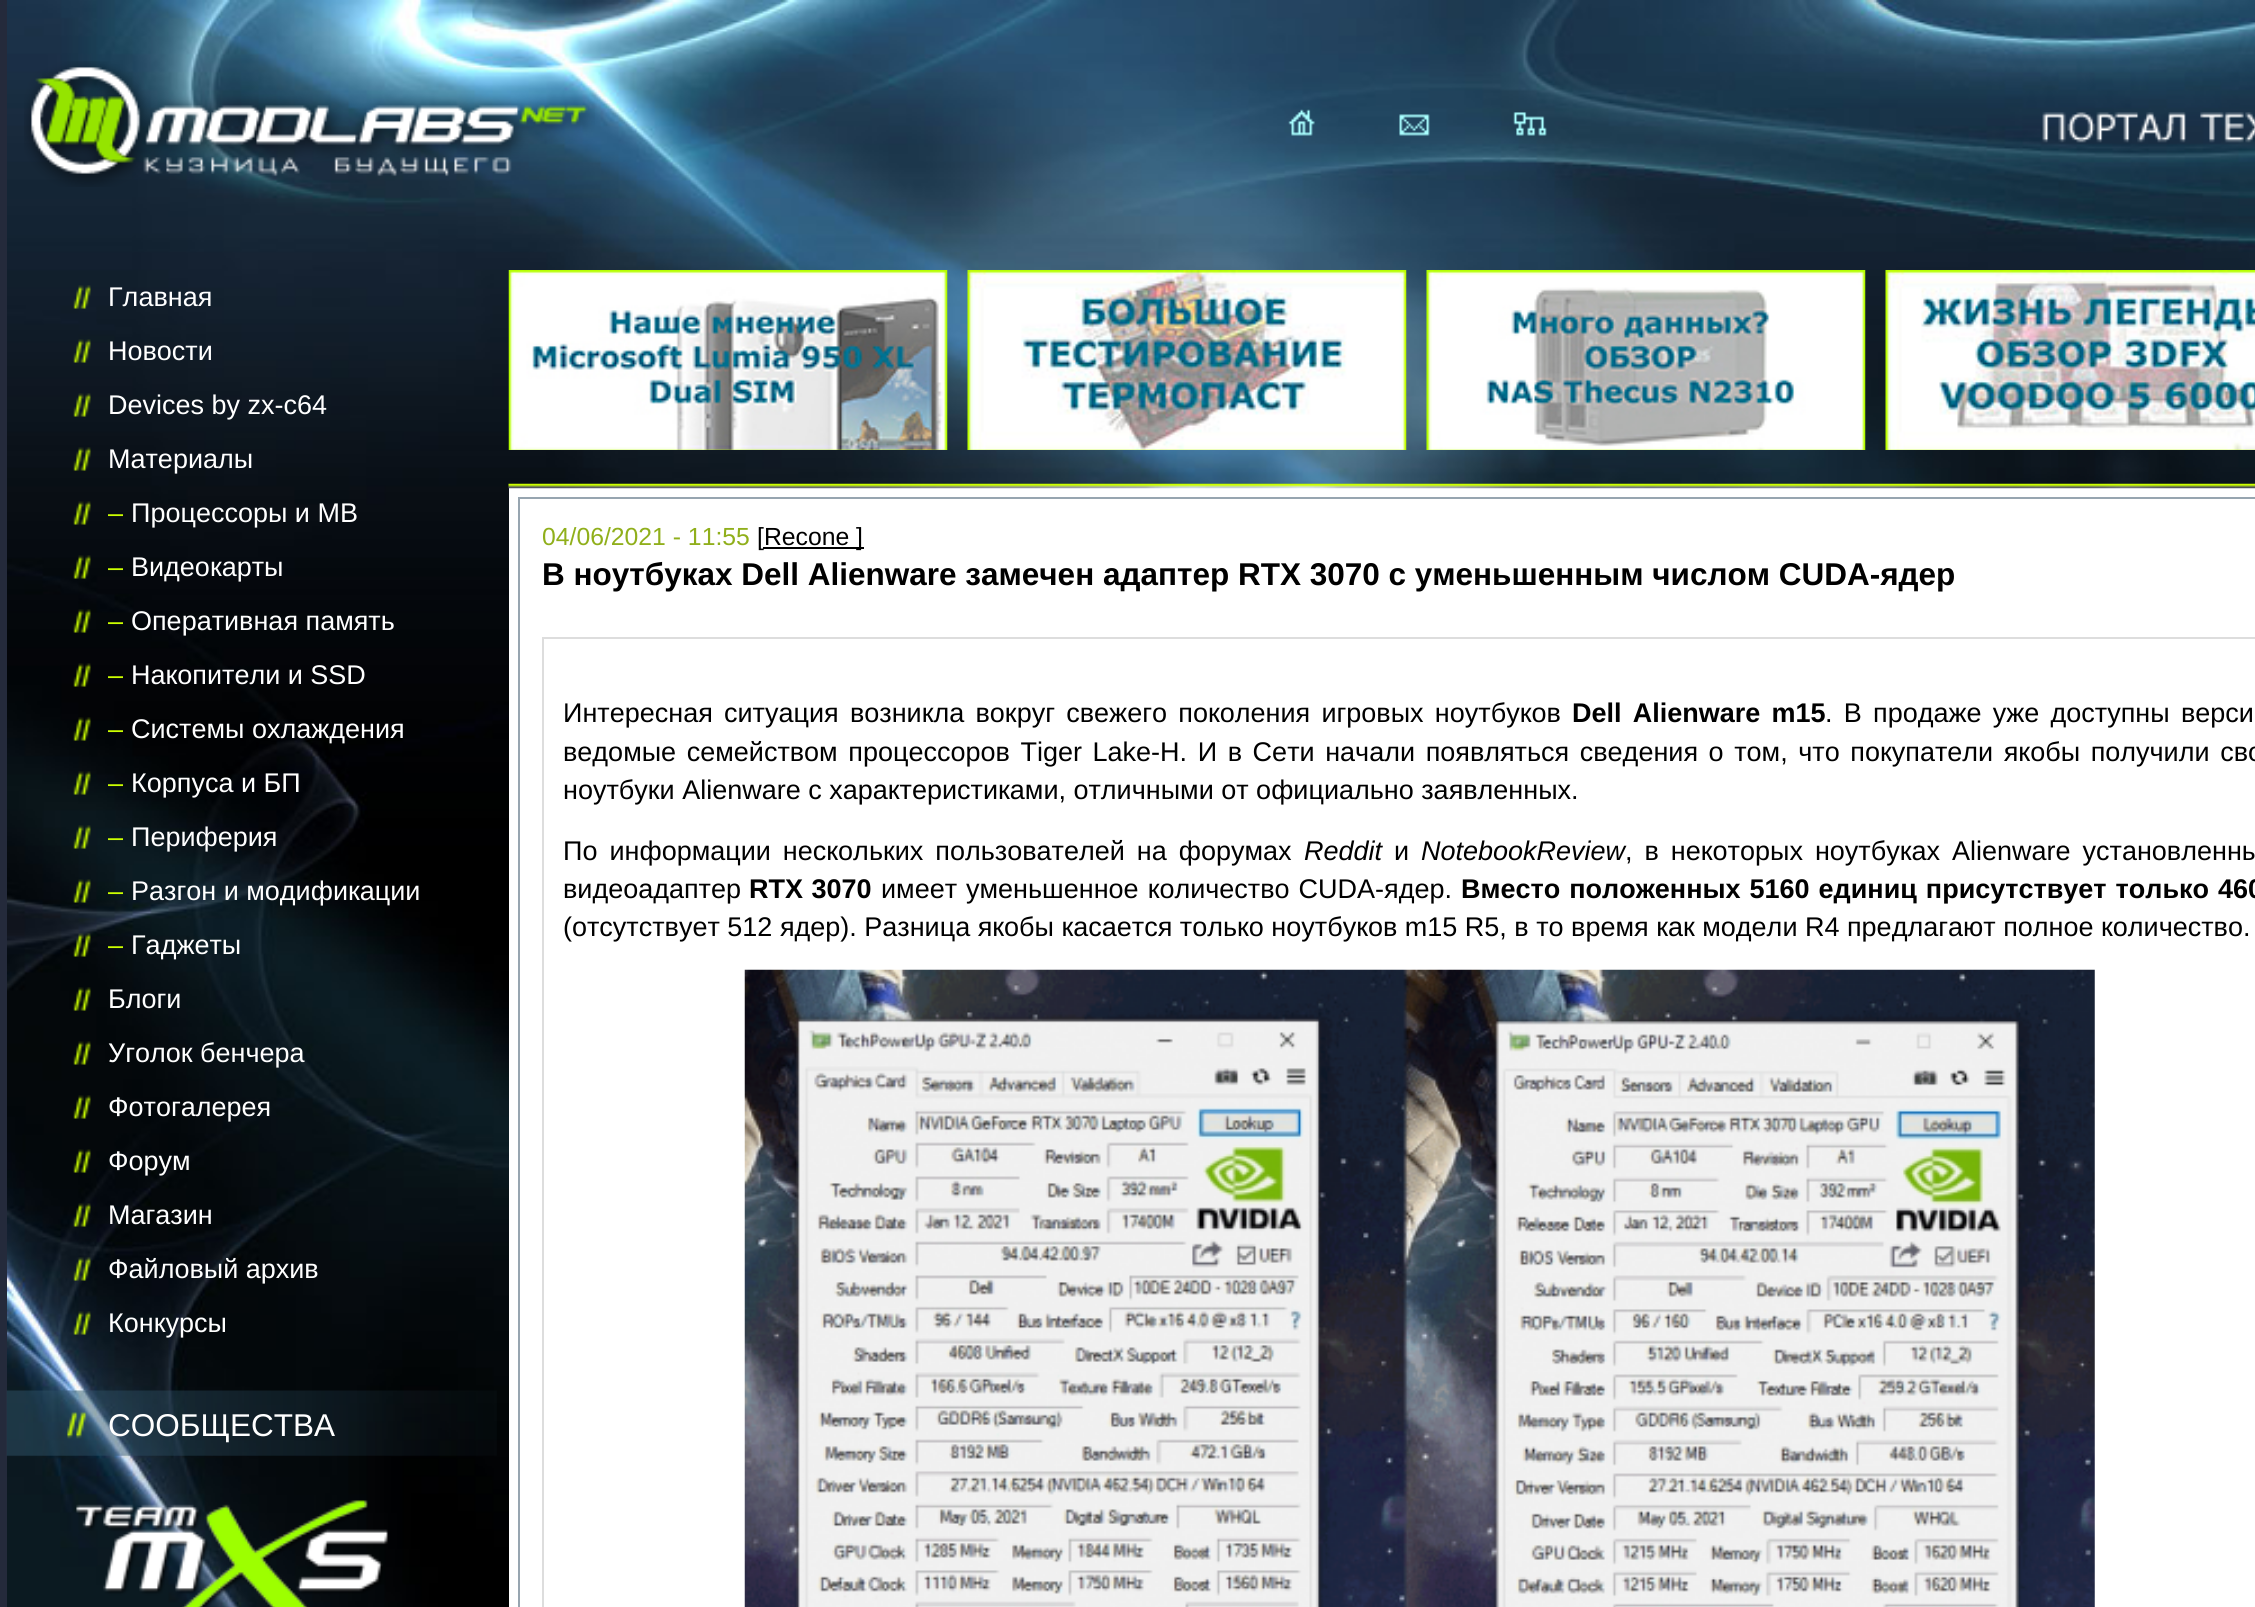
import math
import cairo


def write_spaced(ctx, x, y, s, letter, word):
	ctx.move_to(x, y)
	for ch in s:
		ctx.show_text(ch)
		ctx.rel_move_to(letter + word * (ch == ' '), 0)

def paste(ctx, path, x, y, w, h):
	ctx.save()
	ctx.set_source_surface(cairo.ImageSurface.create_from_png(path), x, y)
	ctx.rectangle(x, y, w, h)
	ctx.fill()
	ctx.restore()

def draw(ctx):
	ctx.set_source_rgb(1, 1, 1)
	ctx.paint()
	paste(ctx, 'media/1.png', 7, 0, 2248, 1607)
	ctx.set_source_rgb(0.141, 0.165, 0.231)
	ctx.rectangle(0, 0, 7, 1607)
	ctx.fill()
	paste(ctx, 'media/2.png', 24, 61, 571, 126)
	paste(ctx, 'media/3.png', 1288, 109, 27, 27)
	paste(ctx, 'media/4.png', 1399, 114, 31, 22)
	paste(ctx, 'media/5.png', 1513, 112, 34, 24)
	paste(ctx, 'media/6.png', 2042, 112, 213, 31)
	paste(ctx, 'media/7.png', 73, 285, 18, 24)
	ctx.select_font_face('Liberation Sans')
	ctx.set_font_size(27)
	ctx.set_source_rgb(1, 1, 1)
	ctx.move_to(108, 306)
	ctx.show_text('Главная')
	paste(ctx, 'media/8.png', 73, 339, 18, 24)
	ctx.move_to(108, 360)
	ctx.show_text('Новости')
	paste(ctx, 'media/9.png', 73, 393, 18, 24)
	ctx.move_to(108, 414)
	ctx.show_text('Devices by zx-c64')
	paste(ctx, 'media/10.png', 73, 447, 18, 24)
	ctx.move_to(108, 468)
	ctx.show_text('Материалы')
	paste(ctx, 'media/11.png', 73, 501, 18, 24)
	ctx.set_source_rgb(0.8, 1, 0)
	ctx.move_to(108, 522)
	ctx.show_text('–')
	ctx.set_source_rgb(1, 1, 1)
	ctx.move_to(131, 522)
	ctx.show_text('Процессоры и MB')
	paste(ctx, 'media/12.png', 73, 555, 18, 24)
	ctx.set_source_rgb(0.8, 1, 0)
	ctx.move_to(108, 576)
	ctx.show_text('–')
	ctx.set_source_rgb(1, 1, 1)
	ctx.move_to(131, 576)
	ctx.show_text('Видеокарты')
	paste(ctx, 'media/13.png', 73, 609, 18, 24)
	ctx.set_source_rgb(0.8, 1, 0)
	ctx.move_to(108, 630)
	ctx.show_text('–')
	ctx.set_source_rgb(1, 1, 1)
	ctx.move_to(131, 630)
	ctx.show_text('Оперативная память')
	paste(ctx, 'media/14.png', 73, 663, 18, 24)
	ctx.set_source_rgb(0.8, 1, 0)
	ctx.move_to(108, 684)
	ctx.show_text('–')
	ctx.set_source_rgb(1, 1, 1)
	ctx.move_to(131, 684)
	ctx.show_text('Накопители и SSD')
	paste(ctx, 'media/15.png', 73, 717, 18, 24)
	ctx.set_source_rgb(0.8, 1, 0)
	ctx.move_to(108, 738)
	ctx.show_text('–')
	ctx.set_source_rgb(1, 1, 1)
	ctx.move_to(131, 738)
	ctx.show_text('Системы охлаждения')
	paste(ctx, 'media/16.png', 73, 771, 18, 24)
	ctx.set_source_rgb(0.8, 1, 0)
	ctx.move_to(108, 792)
	ctx.show_text('–')
	ctx.set_source_rgb(1, 1, 1)
	ctx.move_to(131, 792)
	ctx.show_text('Корпуса и БП')
	paste(ctx, 'media/17.png', 73, 825, 18, 24)
	ctx.set_source_rgb(0.8, 1, 0)
	ctx.move_to(108, 846)
	ctx.show_text('–')
	ctx.set_source_rgb(1, 1, 1)
	ctx.move_to(131, 846)
	ctx.show_text('Периферия')
	paste(ctx, 'media/18.png', 73, 879, 18, 24)
	ctx.set_source_rgb(0.8, 1, 0)
	ctx.move_to(108, 900)
	ctx.show_text('–')
	ctx.set_source_rgb(1, 1, 1)
	ctx.move_to(131, 900)
	ctx.show_text('Разгон и модификации')
	paste(ctx, 'media/19.png', 73, 933, 18, 24)
	ctx.set_source_rgb(0.8, 1, 0)
	ctx.move_to(108, 954)
	ctx.show_text('–')
	ctx.set_source_rgb(1, 1, 1)
	ctx.move_to(131, 954)
	ctx.show_text('Гаджеты')
	paste(ctx, 'media/20.png', 73, 987, 18, 24)
	ctx.move_to(108, 1008)
	ctx.show_text('Блоги')
	paste(ctx, 'media/21.png', 73, 1041, 18, 24)
	ctx.move_to(108, 1062)
	ctx.show_text('Уголок бенчера')
	paste(ctx, 'media/21.png', 73, 1095, 18, 24)
	ctx.move_to(108, 1116)
	ctx.show_text('Фотогалерея')
	paste(ctx, 'media/22.png', 73, 1149, 18, 24)
	ctx.move_to(108, 1170)
	ctx.show_text('Форум')
	paste(ctx, 'media/23.png', 73, 1203, 18, 24)
	ctx.move_to(108, 1224)
	ctx.show_text('Магазин')
	paste(ctx, 'media/24.png', 73, 1257, 18, 24)
	ctx.move_to(108, 1278)
	ctx.show_text('Файловый архив')
	paste(ctx, 'media/25.png', 73, 1311, 18, 24)
	ctx.move_to(108, 1332)
	ctx.show_text('Конкурсы')
	paste(ctx, 'media/26.png', 6, 1390, 491, 66)
	ctx.set_font_size(31.5)
	ctx.move_to(108, 1436)
	ctx.show_text('СООБЩЕСТВА')
	paste(ctx, 'media/27.png', 76, 1500, 312, 107)
	paste(ctx, 'media/28.png', 508, 270, 440, 180)
	paste(ctx, 'media/29.png', 967, 270, 440, 180)
	paste(ctx, 'media/30.png', 1426, 270, 440, 180)
	paste(ctx, 'media/31.png', 1885, 270, 370, 180)
	ctx.rectangle(509, 488, 1746, 1119)
	ctx.fill()
	paste(ctx, 'media/32.png', 508, 483, 1747, 6)
	ctx.rectangle(519, 498, 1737, 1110)
	ctx.set_source_rgb(0.592, 0.647, 0.69)
	ctx.stroke()
	ctx.set_font_size(24.75)
	ctx.set_source_rgb(0.565, 0.686, 0.106)
	ctx.move_to(542, 545)
	ctx.show_text('04/06/2021 - 11:55')
	ctx.set_source_rgb(0, 0, 0)
	ctx.move_to(757, 545)
	ctx.show_text('[Recone')
	ctx.rectangle(763, 547, 101, 2)
	ctx.fill()
	ctx.move_to(856, 545)
	ctx.show_text(']')
	ctx.select_font_face('Liberation Sans', cairo.FONT_SLANT_NORMAL, cairo.FONT_WEIGHT_BOLD)
	ctx.set_font_size(31.5)
	ctx.move_to(542, 585)
	ctx.show_text('В ноутбуках Dell Alienware замечен адаптер RTX 3070 с уменьшенным числом CUDA-ядер')
	ctx.rectangle(543, 638, 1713, 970)
	ctx.set_source_rgb(0.867, 0.867, 0.867)
	ctx.stroke()
	ctx.select_font_face('Liberation Sans')
	ctx.set_font_size(27)
	ctx.set_source_rgb(0, 0, 0)
	write_spaced(ctx, 563, 722, 'Интересная ситуация возникла вокруг свежего поколения игровых ноутбуков', 0, 3.75)
	ctx.select_font_face('Liberation Sans', cairo.FONT_SLANT_NORMAL, cairo.FONT_WEIGHT_BOLD)
	write_spaced(ctx, 1572, 722, 'Dell Alienware m15', 0, 3.75)
	ctx.select_font_face('Liberation Sans')
	write_spaced(ctx, 1825, 722, '. В продаже уже доступны верси', 0, 3.75)
	write_spaced(ctx, 563, 761, 'ведомые семейством процессоров Tiger Lake-H. И в Сети начали появляться сведения о том, что покупатели якобы получили сво', 0, 3.1)
	ctx.move_to(563, 799)
	ctx.show_text('ноутбуки Alienware с характеристиками, отличными от официально заявленных.')
	write_spaced(ctx, 563, 860, 'По информации нескольких пользователей на форумах', 0, 4.5)
	ctx.select_font_face('Liberation Sans', cairo.FONT_SLANT_ITALIC)
	ctx.move_to(1304, 860)
	ctx.show_text('Reddit')
	ctx.select_font_face('Liberation Sans')
	ctx.move_to(1394, 860)
	ctx.show_text('и')
	ctx.select_font_face('Liberation Sans', cairo.FONT_SLANT_ITALIC)
	ctx.move_to(1421, 860)
	ctx.show_text('NotebookReview')
	ctx.select_font_face('Liberation Sans')
	write_spaced(ctx, 1625, 860, ', в некоторых ноутбуках Alienware установленны', 0, 4.5)
	ctx.move_to(563, 898)
	ctx.show_text('видеоадаптер')
	ctx.select_font_face('Liberation Sans', cairo.FONT_SLANT_NORMAL, cairo.FONT_WEIGHT_BOLD)
	write_spaced(ctx, 749, 898, 'RTX 3070', 0, 1)
	ctx.select_font_face('Liberation Sans')
	write_spaced(ctx, 881, 898, 'имеет уменьшенное количество CUDA-ядер.', 0, 1.5)
	ctx.select_font_face('Liberation Sans', cairo.FONT_SLANT_NORMAL, cairo.FONT_WEIGHT_BOLD)
	write_spaced(ctx, 1461, 898, 'Вместо положенных 5160 единиц присутствует только 460', 0, 1.5)
	ctx.select_font_face('Liberation Sans')
	ctx.move_to(563, 936)
	ctx.show_text('(отсутствует 512 ядер). Разница якобы касается только ноутбуков m15 R5, в то время как модели R4 предлагают полное количество.')
	paste(ctx, 'media/33.png', 744, 969, 1351, 638)


surface = cairo.ImageSurface(cairo.FORMAT_RGB24, 2255, 1607)
ctx = cairo.Context(surface)
options = cairo.FontOptions()
options.set_hint_metrics(cairo.HINT_METRICS_OFF)
options.set_hint_style(cairo.HINT_STYLE_NONE)
ctx.set_font_options(options)
ctx.set_miter_limit(4)
draw(ctx)
surface.write_to_png('image.png')
